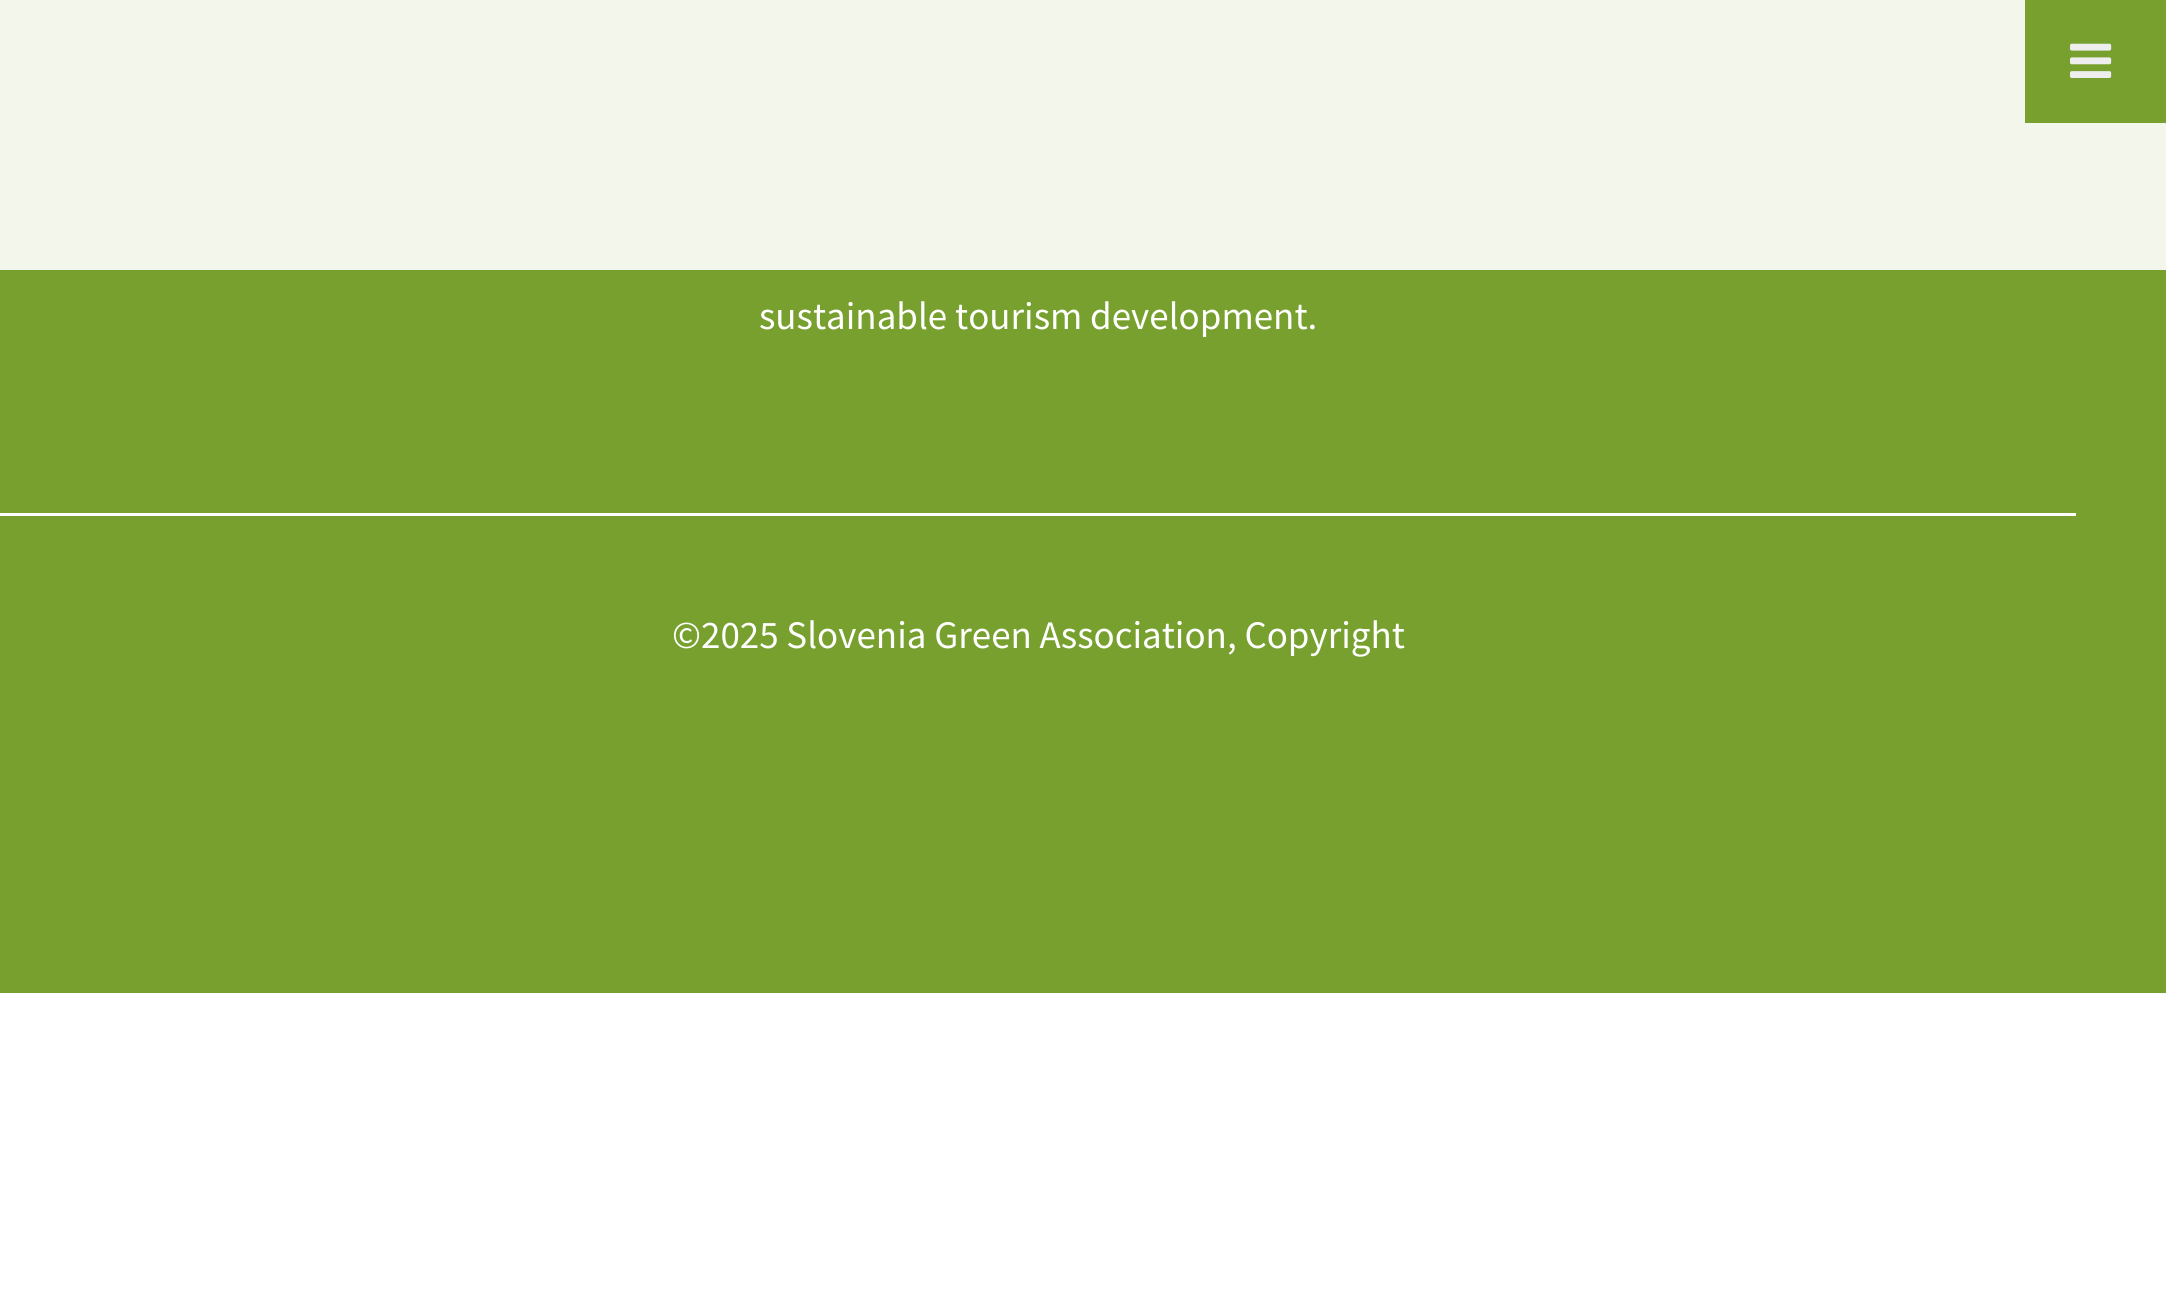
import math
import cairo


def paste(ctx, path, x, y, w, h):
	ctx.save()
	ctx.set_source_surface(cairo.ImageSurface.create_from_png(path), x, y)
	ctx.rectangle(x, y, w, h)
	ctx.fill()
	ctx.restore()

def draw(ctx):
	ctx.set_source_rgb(1, 1, 1)
	ctx.paint()
	ctx.set_source_rgb(0.467, 0.627, 0.18)
	ctx.rectangle(0, 0, 2166, 993)
	ctx.fill()
	ctx.set_source_rgba(1, 1, 1, 0.9)
	ctx.rectangle(0, 0, 2166, 270)
	ctx.fill()
	ctx.set_source_rgb(0.467, 0.627, 0.18)
	ctx.rectangle(2025, 0, 141, 123)
	ctx.fill()
	paste(ctx, 'media/1.png', 2070, 43, 42, 35)
	ctx.select_font_face('Source Sans Pro')
	ctx.set_font_size(39)
	ctx.set_source_rgb(1, 1, 1)
	ctx.move_to(759, 329)
	ctx.show_text('sustainable tourism development.')
	ctx.rectangle(0, 513, 2076, 3)
	ctx.fill()
	ctx.move_to(672, 648)
	ctx.show_text('©2025 Slovenia Green Association, Copyright')


surface = cairo.ImageSurface(cairo.FORMAT_RGB24, 2166, 1290)
ctx = cairo.Context(surface)
options = cairo.FontOptions()
options.set_hint_metrics(cairo.HINT_METRICS_OFF)
options.set_hint_style(cairo.HINT_STYLE_NONE)
ctx.set_font_options(options)
ctx.set_miter_limit(4)
draw(ctx)
surface.write_to_png('image.png')
